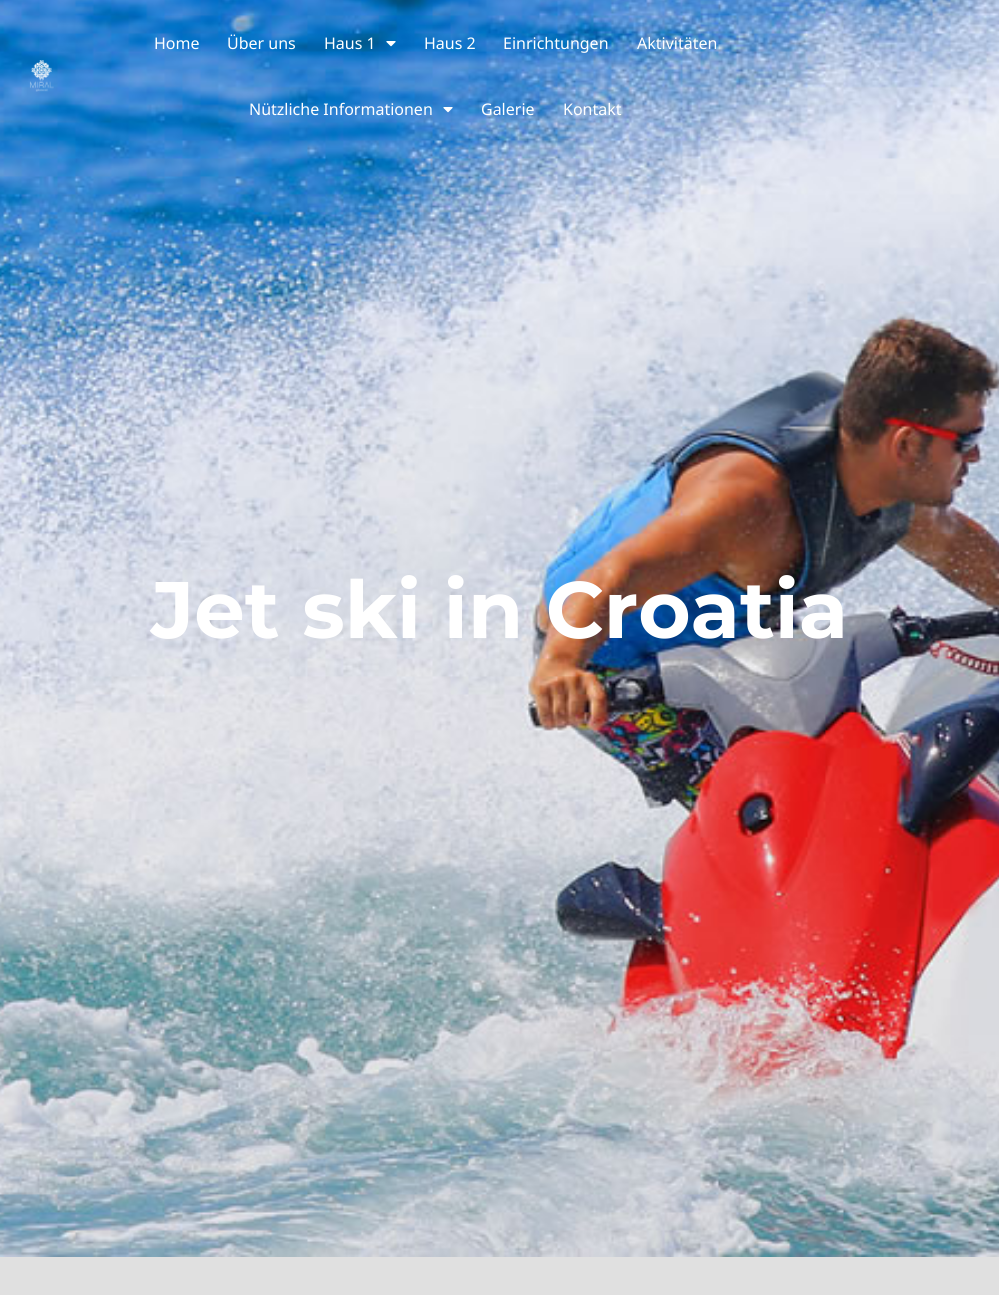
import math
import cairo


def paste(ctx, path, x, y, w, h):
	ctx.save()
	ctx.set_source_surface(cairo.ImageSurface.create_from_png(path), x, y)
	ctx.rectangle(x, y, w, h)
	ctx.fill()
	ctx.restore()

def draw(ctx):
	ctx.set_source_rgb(0.878, 0.878, 0.878)
	ctx.paint()
	paste(ctx, 'media/4.png', 0, 0, 999, 1257)
	paste(ctx, 'media/1.png', 29, 60, 25, 32)
	ctx.select_font_face('Noto Sans')
	ctx.set_font_size(16)
	ctx.set_source_rgb(1, 1, 1)
	for x, y, s in [
		(154, 49, 'Home'),
		(227, 49, 'Über uns'),
		(324, 49, 'Haus 1'),
	]:
		ctx.move_to(x, y)
		ctx.show_text(s)
	paste(ctx, 'media/2.png', 386, 41, 10, 6)
	for x, y, s in [
		(424, 49, 'Haus 2'),
		(503, 49, 'Einrichtungen'),
		(637, 49, 'Aktivitäten'),
		(249, 115, 'Nützliche Informationen'),
	]:
		ctx.move_to(x, y)
		ctx.show_text(s)
	paste(ctx, 'media/3.png', 443, 107, 10, 6)
	ctx.move_to(481, 115)
	ctx.show_text('Galerie')
	ctx.move_to(563, 115)
	ctx.show_text('Kontakt')
	ctx.select_font_face('Montserrat Thin')
	ctx.set_font_size(80)
	ctx.move_to(151, 638)
	ctx.show_text('Jet ski in Croatia')


surface = cairo.ImageSurface(cairo.FORMAT_RGB24, 999, 1295)
ctx = cairo.Context(surface)
options = cairo.FontOptions()
options.set_hint_metrics(cairo.HINT_METRICS_OFF)
options.set_hint_style(cairo.HINT_STYLE_NONE)
ctx.set_font_options(options)
ctx.set_miter_limit(4)
draw(ctx)
surface.write_to_png('image.png')
